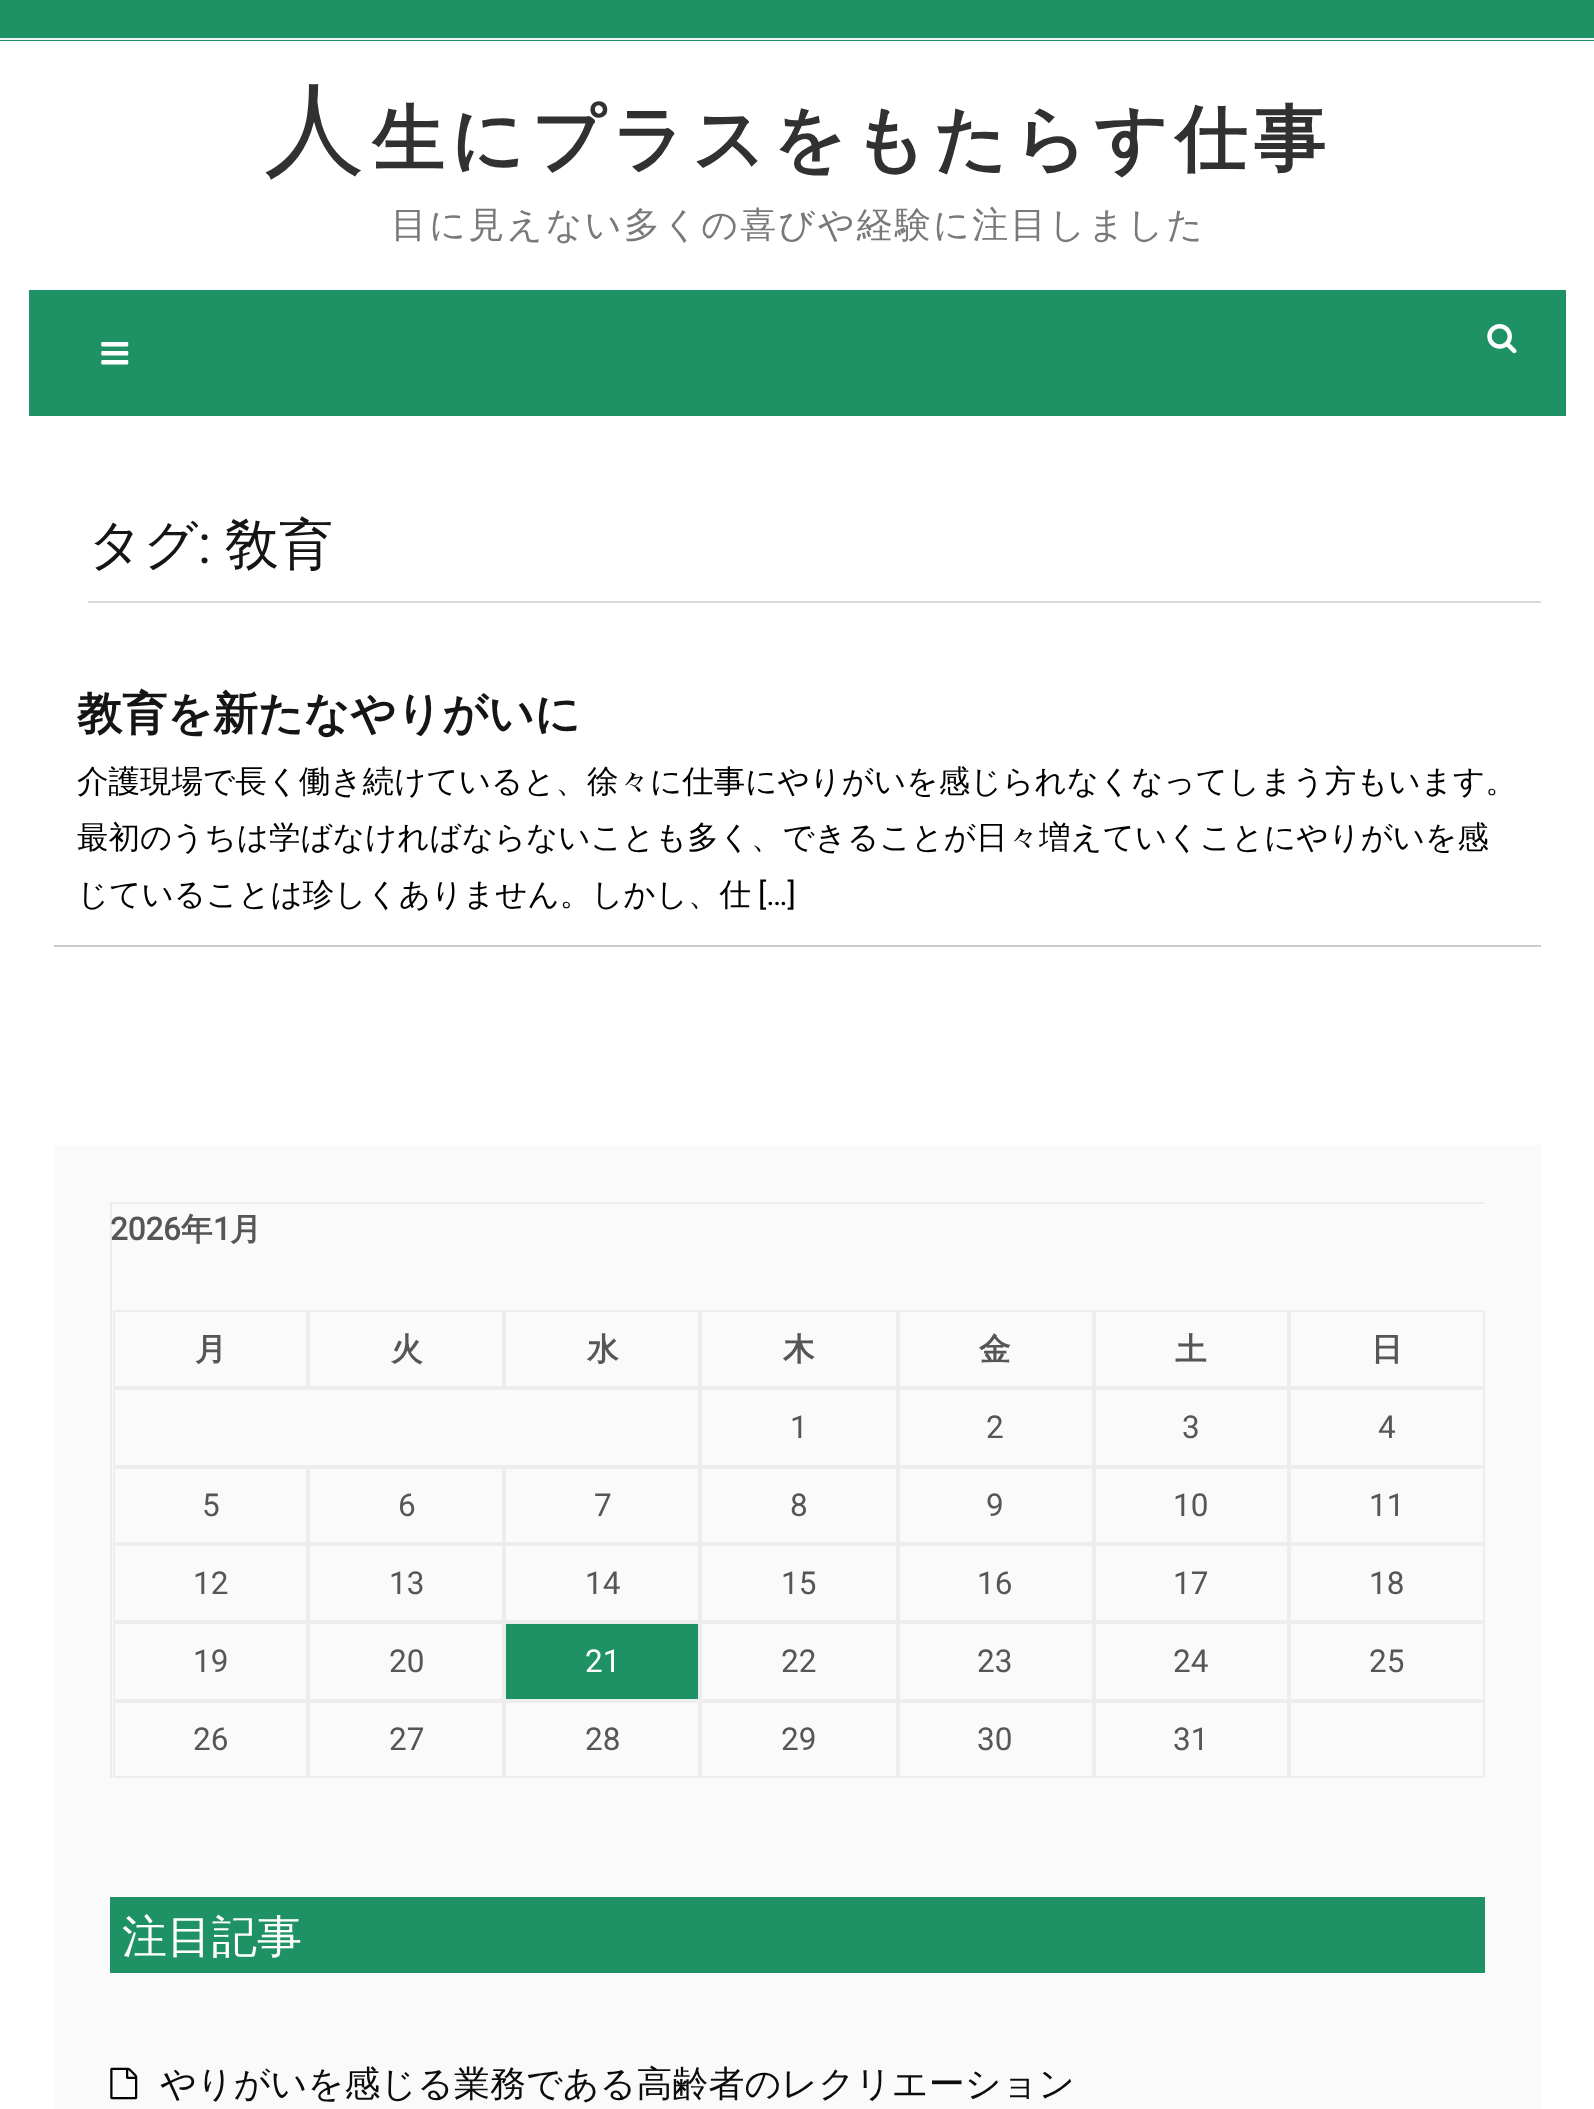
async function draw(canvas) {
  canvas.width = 1594
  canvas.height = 2109
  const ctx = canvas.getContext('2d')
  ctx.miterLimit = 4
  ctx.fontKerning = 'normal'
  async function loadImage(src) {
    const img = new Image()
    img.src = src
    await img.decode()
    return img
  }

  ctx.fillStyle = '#fff'
  ctx.fillRect(0, 0, 1594, 2109)
  ctx.fillStyle = '#1e9265'
  ctx.fillRect(0, 0, 1594, 41)
  ctx.fillStyle = '#f1f1f1'
  ctx.fillRect(0, 38, 1594, 2)
  ctx.letterSpacing = '6.75px'
  ctx.font = '100 101px Noto Sans'
  ctx.fillStyle = '#313131'
  ctx.fillText('人', 264, 164)
  ctx.font = 'bold 72px WenQuanYi Zen Hei'
  ctx.fillText('生にプラスをもたらす仕事', 372, 164)
  ctx.letterSpacing = '2.25px'
  ctx.font = '500 36px WenQuanYi Zen Hei'
  ctx.fillStyle = '#797979'
  ctx.fillText('目に見えない多くの喜びや経験に注目しました', 391, 237)
  ctx.fillStyle = '#1e9265'
  ctx.fillRect(29, 290, 1537, 126)
  ctx.drawImage(await loadImage('image0.png'), 101, 342, 28, 23)
  ctx.drawImage(await loadImage('image1.png'), 1487, 324, 30, 30)
  ctx.fillStyle = '#d9d9d9'
  ctx.fillRect(88, 601, 1453, 2)
  ctx.letterSpacing = '0px'
  ctx.font = '500 54px WenQuanYi Zen Hei'
  ctx.fillStyle = '#151515'
  ctx.fillText('タグ', 88, 563)
  ctx.font = '54px Roboto'
  ctx.fillText(':', 198, 563)
  ctx.font = '500 54px WenQuanYi Zen Hei'
  ctx.fillText('敎育', 225, 563)
  ctx.font = 'bold 45px WenQuanYi Zen Hei'
  ctx.fillText('教育を新たなやりがいに', 77, 729)
  ctx.font = '500 31.5px WenQuanYi Zen Hei'
  ctx.fillStyle = '#000'
  ctx.fillText('介護現場で長く働き続けていると、徐々に仕事にやりがいを感じられなくなってしまう方もいます。', 77, 792)
  ctx.fillText('最初のうちは学ばなければならないことも多く、できることが日々増えていくことにやりがいを感', 77, 848)
  ctx.fillText('じていることは珍しくありません。しかし、仕', 77, 905)
  ctx.font = '31.5px Roboto'
  ctx.fillText('[…]', 758, 905)
  ctx.fillStyle = '#ccc'
  ctx.fillRect(54, 945, 1487, 2)
  ctx.fillStyle = '#fbfafa'
  ctx.fillRect(54, 1145, 1487, 964)
  ctx.fillStyle = '#ededed'
  ctx.fillRect(110, 1202, 1375, 2)
  ctx.fillRect(110, 1202, 2, 576)
  ctx.font = 'bold 31.5px Roboto'
  ctx.fillStyle = '#565656'
  ctx.fillText('2026', 110, 1240)
  ctx.font = 'bold 31.5px WenQuanYi Zen Hei'
  ctx.fillText('年', 181, 1240)
  ctx.font = 'bold 31.5px Roboto'
  ctx.fillText('1', 213, 1240)
  ctx.font = 'bold 31.5px WenQuanYi Zen Hei'
  ctx.fillText('月', 230, 1240)
  ctx.strokeStyle = '#ededed'
  ctx.lineWidth = 2
  ctx.strokeRect(114, 1311, 193, 76)
  ctx.fillText('月', 195, 1360)
  ctx.strokeRect(309, 1311, 194, 76)
  ctx.fillText('火', 391, 1360)
  ctx.strokeRect(505, 1311, 194, 76)
  ctx.fillText('水', 587, 1360)
  ctx.strokeRect(701, 1311, 196, 76)
  ctx.fillText('木', 783, 1360)
  ctx.strokeRect(899, 1311, 194, 76)
  ctx.fillText('金', 979, 1360)
  ctx.strokeRect(1095, 1311, 193, 76)
  ctx.fillText('土', 1175, 1360)
  ctx.strokeRect(1290, 1311, 194, 76)
  ctx.fillText('日', 1371, 1360)
  ctx.strokeRect(114, 1389, 585, 77)
  ctx.strokeRect(701, 1389, 196, 77)
  ctx.font = '31.5px Roboto'
  ctx.fillText('1', 790, 1438)
  ctx.strokeRect(899, 1389, 194, 77)
  ctx.fillText('2', 986, 1438)
  ctx.strokeRect(1095, 1389, 193, 77)
  ctx.fillText('3', 1182, 1438)
  ctx.strokeRect(1290, 1389, 194, 77)
  ctx.fillText('4', 1378, 1438)
  ctx.strokeRect(114, 1468, 193, 75)
  ctx.fillText('5', 202, 1516)
  ctx.strokeRect(309, 1468, 194, 75)
  ctx.fillText('6', 398, 1516)
  ctx.strokeRect(505, 1468, 194, 75)
  ctx.fillText('7', 594, 1516)
  ctx.strokeRect(701, 1468, 196, 75)
  ctx.fillText('8', 790, 1516)
  ctx.strokeRect(899, 1468, 194, 75)
  ctx.fillText('9', 986, 1516)
  ctx.strokeRect(1095, 1468, 193, 75)
  ctx.fillText('10', 1173, 1516)
  ctx.strokeRect(1290, 1468, 194, 75)
  ctx.fillText('11', 1369, 1516)
  ctx.strokeRect(114, 1545, 193, 76)
  ctx.fillText('12', 193, 1594)
  ctx.strokeRect(309, 1545, 194, 76)
  ctx.fillText('13', 389, 1594)
  ctx.strokeRect(505, 1545, 194, 76)
  ctx.fillText('14', 585, 1594)
  ctx.strokeRect(701, 1545, 196, 76)
  ctx.fillText('15', 781, 1594)
  ctx.strokeRect(899, 1545, 194, 76)
  ctx.fillText('16', 977, 1594)
  ctx.strokeRect(1095, 1545, 193, 76)
  ctx.fillText('17', 1173, 1594)
  ctx.strokeRect(1290, 1545, 194, 76)
  ctx.fillText('18', 1369, 1594)
  ctx.strokeRect(114, 1623, 193, 77)
  ctx.fillText('19', 193, 1672)
  ctx.strokeRect(309, 1623, 194, 77)
  ctx.fillText('20', 389, 1672)
  ctx.fillStyle = '#1e9265'
  ctx.beginPath()
  ctx.rect(505, 1623, 194, 77)
  ctx.fill()
  ctx.stroke()
  ctx.fillStyle = '#fff'
  ctx.fillText('21', 585, 1672)
  ctx.strokeRect(701, 1623, 196, 77)
  ctx.fillStyle = '#565656'
  ctx.fillText('22', 781, 1672)
  ctx.strokeRect(899, 1623, 194, 77)
  ctx.fillText('23', 977, 1672)
  ctx.strokeRect(1095, 1623, 193, 77)
  ctx.fillText('24', 1173, 1672)
  ctx.strokeRect(1290, 1623, 194, 77)
  ctx.fillText('25', 1369, 1672)
  ctx.strokeRect(114, 1702, 193, 75)
  ctx.fillText('26', 193, 1750)
  ctx.strokeRect(309, 1702, 194, 75)
  ctx.fillText('27', 389, 1750)
  ctx.strokeRect(505, 1702, 194, 75)
  ctx.fillText('28', 585, 1750)
  ctx.strokeRect(701, 1702, 196, 75)
  ctx.fillText('29', 781, 1750)
  ctx.strokeRect(899, 1702, 194, 75)
  ctx.fillText('30', 977, 1750)
  ctx.strokeRect(1095, 1702, 193, 75)
  ctx.fillText('31', 1173, 1750)
  ctx.strokeRect(1290, 1702, 194, 75)
  ctx.fillStyle = '#1e9265'
  ctx.fillRect(110, 1897, 1375, 76)
  ctx.font = '500 45px WenQuanYi Zen Hei'
  ctx.fillStyle = '#fff'
  ctx.fillText('注目記事', 122, 1952)
  ctx.drawImage(await loadImage('image2.png'), 110, 2067, 28, 33)
  ctx.font = '500 36px WenQuanYi Zen Hei'
  ctx.fillStyle = '#0c0c0c'
  ctx.fillText('やりがいを感じる業務である高齢者のレクリエーション', 160, 2096)
}

draw(document.querySelector('canvas'))
